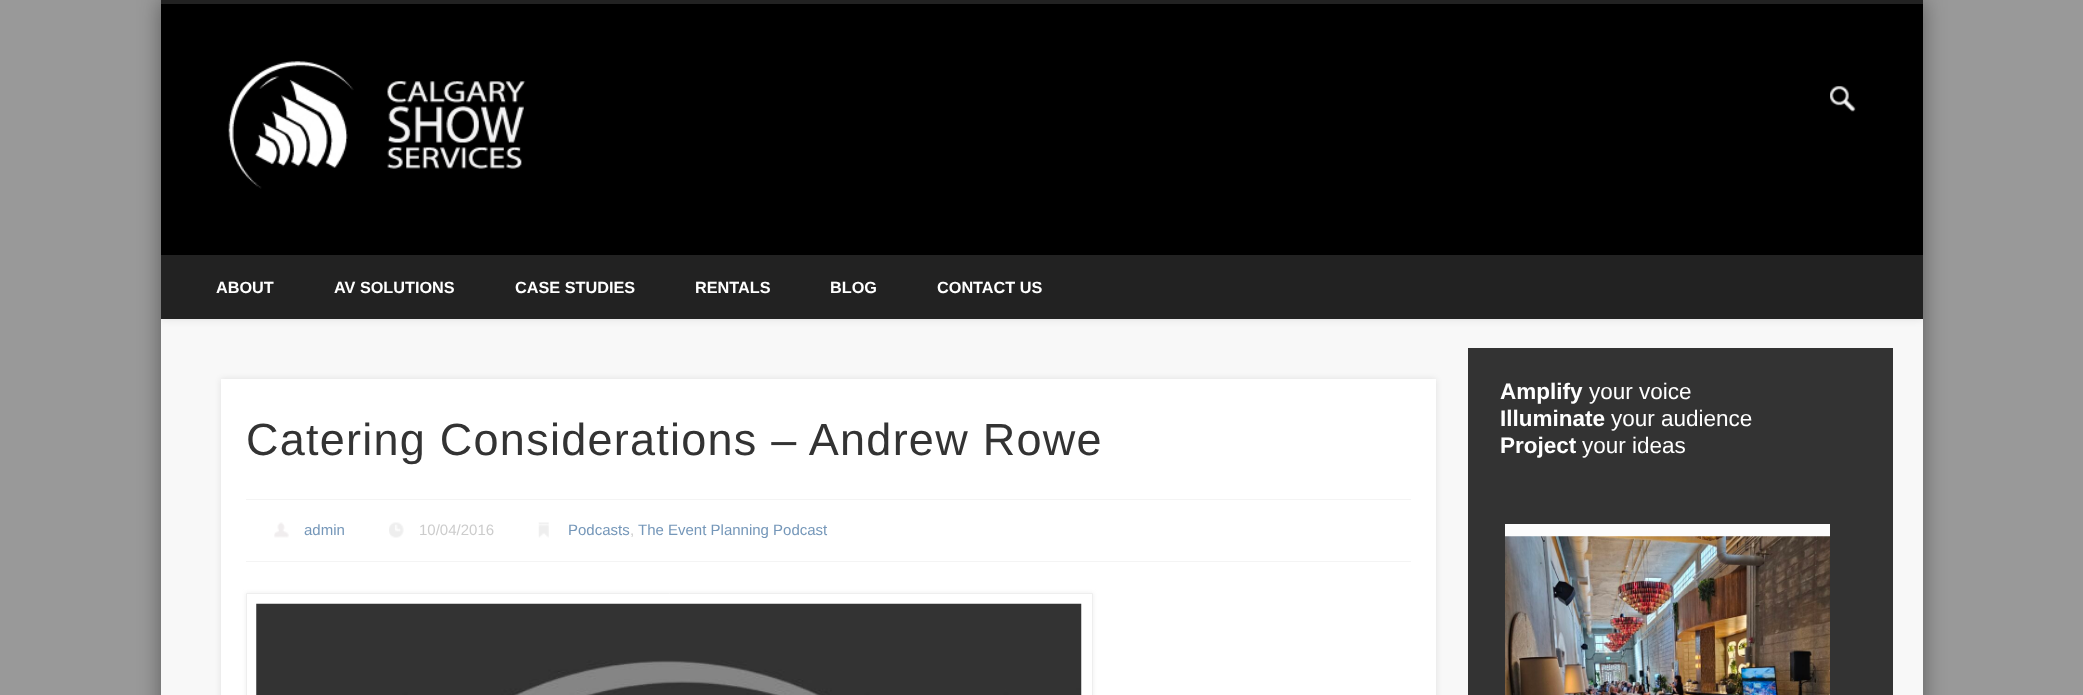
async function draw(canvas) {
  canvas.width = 2083
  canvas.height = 695
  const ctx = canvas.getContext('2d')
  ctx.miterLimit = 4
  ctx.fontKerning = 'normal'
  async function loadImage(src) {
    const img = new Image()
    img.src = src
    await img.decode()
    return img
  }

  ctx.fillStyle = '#999'
  ctx.fillRect(0, 0, 2083, 695)
  ctx.fillStyle = '#00000066'
  ctx.filter = 'blur(11px)'
  ctx.beginPath()
  ctx.rect(161, 0, 1762, 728)
  ctx.fill()
  ctx.filter = 'none'
  ctx.fillStyle = '#f8f8f8'
  ctx.fillRect(161, 319, 1762, 376)
  ctx.fillStyle = '#000'
  ctx.fillRect(161, 4, 1762, 251)
  ctx.fillStyle = '#222'
  ctx.fillRect(161, 0, 1762, 4)
  ctx.drawImage(await loadImage('image0.png'), 228, 61, 298, 128)
  ctx.drawImage(await loadImage('image1.png'), 1830, 86, 26, 26)
  ctx.save()
  ctx.beginPath()
  ctx.rect(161, 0, 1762, 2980)
  ctx.clip()
  ctx.fillStyle = '#0000001a'
  ctx.filter = 'blur(4.5px)'
  ctx.beginPath()
  ctx.rect(161, 255, 1762, 64)
  ctx.fill()
  ctx.filter = 'none'
  ctx.restore()
  ctx.fillRect(161, 255, 1762, 64)
  ctx.font = 'bold 16.25px Liberation Sans'
  ctx.fillStyle = '#fff'
  ctx.fillText('ABOUT', 216, 293)
  ctx.fillText('AV SOLUTIONS', 334, 293)
  ctx.fillText('CASE STUDIES', 515, 293)
  ctx.fillText('RENTALS', 695, 293)
  ctx.fillText('BLOG', 830, 293)
  ctx.fillText('CONTACT US', 937, 293)
  ctx.fillStyle = '#0000001a'
  ctx.filter = 'blur(3px)'
  ctx.beginPath()
  ctx.rect(221, 379, 1215, 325)
  ctx.fill()
  ctx.filter = 'none'
  ctx.fillStyle = '#fff'
  ctx.fillRect(221, 379, 1215, 316)
  ctx.letterSpacing = '1.25px'
  ctx.font = '45px Liberation Sans'
  ctx.fillStyle = '#333'
  ctx.fillText('Catering Considerations – Andrew Rowe', 246, 455)
  ctx.fillStyle = '#f4f4f4'
  ctx.fillRect(246, 499, 1165, 1)
  ctx.fillRect(246, 561, 1165, 1)
  ctx.drawImage(await loadImage('image2.png'), 274, 522, 15, 16)
  ctx.letterSpacing = '0px'
  ctx.font = '15px Liberation Sans'
  ctx.fillStyle = '#7597b9'
  ctx.fillText('admin', 304, 535)
  ctx.drawImage(await loadImage('image3.png'), 389, 522, 15, 16)
  ctx.fillStyle = '#ccc'
  ctx.fillText('10/04/2016', 419, 535)
  ctx.drawImage(await loadImage('image4.png'), 538, 522, 11, 16)
  ctx.fillStyle = '#7597b9'
  ctx.fillText('Podcasts', 568, 535)
  ctx.fillStyle = '#ccc'
  ctx.fillText(',', 630, 535)
  ctx.fillStyle = '#7597b9'
  ctx.fillText('The Event Planning Podcast', 638, 535)
  ctx.fillStyle = '#eee'
  ctx.filter = 'blur(2px)'
  ctx.beginPath()
  ctx.rect(246, 593, 847, 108)
  ctx.fill()
  ctx.filter = 'none'
  ctx.fillStyle = '#fff'
  ctx.beginPath()
  ctx.rect(246.5, 593.5, 846, 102)
  ctx.fill()
  ctx.strokeStyle = '#eee'
  ctx.stroke()
  ctx.drawImage(await loadImage('image5.png'), 256, 603, 826, 92)
  ctx.fillStyle = '#333'
  ctx.fillRect(1468, 348, 425, 347)
  ctx.font = 'bold 22.5px Liberation Sans'
  ctx.fillStyle = '#fff'
  ctx.fillText('Amplify', 1500, 399)
  ctx.font = '22.5px Liberation Sans'
  ctx.fillText('your voice', 1589, 399)
  ctx.font = 'bold 22.5px Liberation Sans'
  ctx.fillText('Illuminate', 1500, 426)
  ctx.font = '22.5px Liberation Sans'
  ctx.fillText('your audience', 1611, 426)
  ctx.font = 'bold 22.5px Liberation Sans'
  ctx.fillText('Project', 1500, 453)
  ctx.font = '22.5px Liberation Sans'
  ctx.fillText('your ideas', 1582, 453)
  ctx.fillStyle = '#fcfcfc'
  ctx.fillRect(1505, 524, 325, 13)
  ctx.drawImage(await loadImage('image6.png'), 1505, 536, 325, 159)
}

draw(document.querySelector('canvas'))
